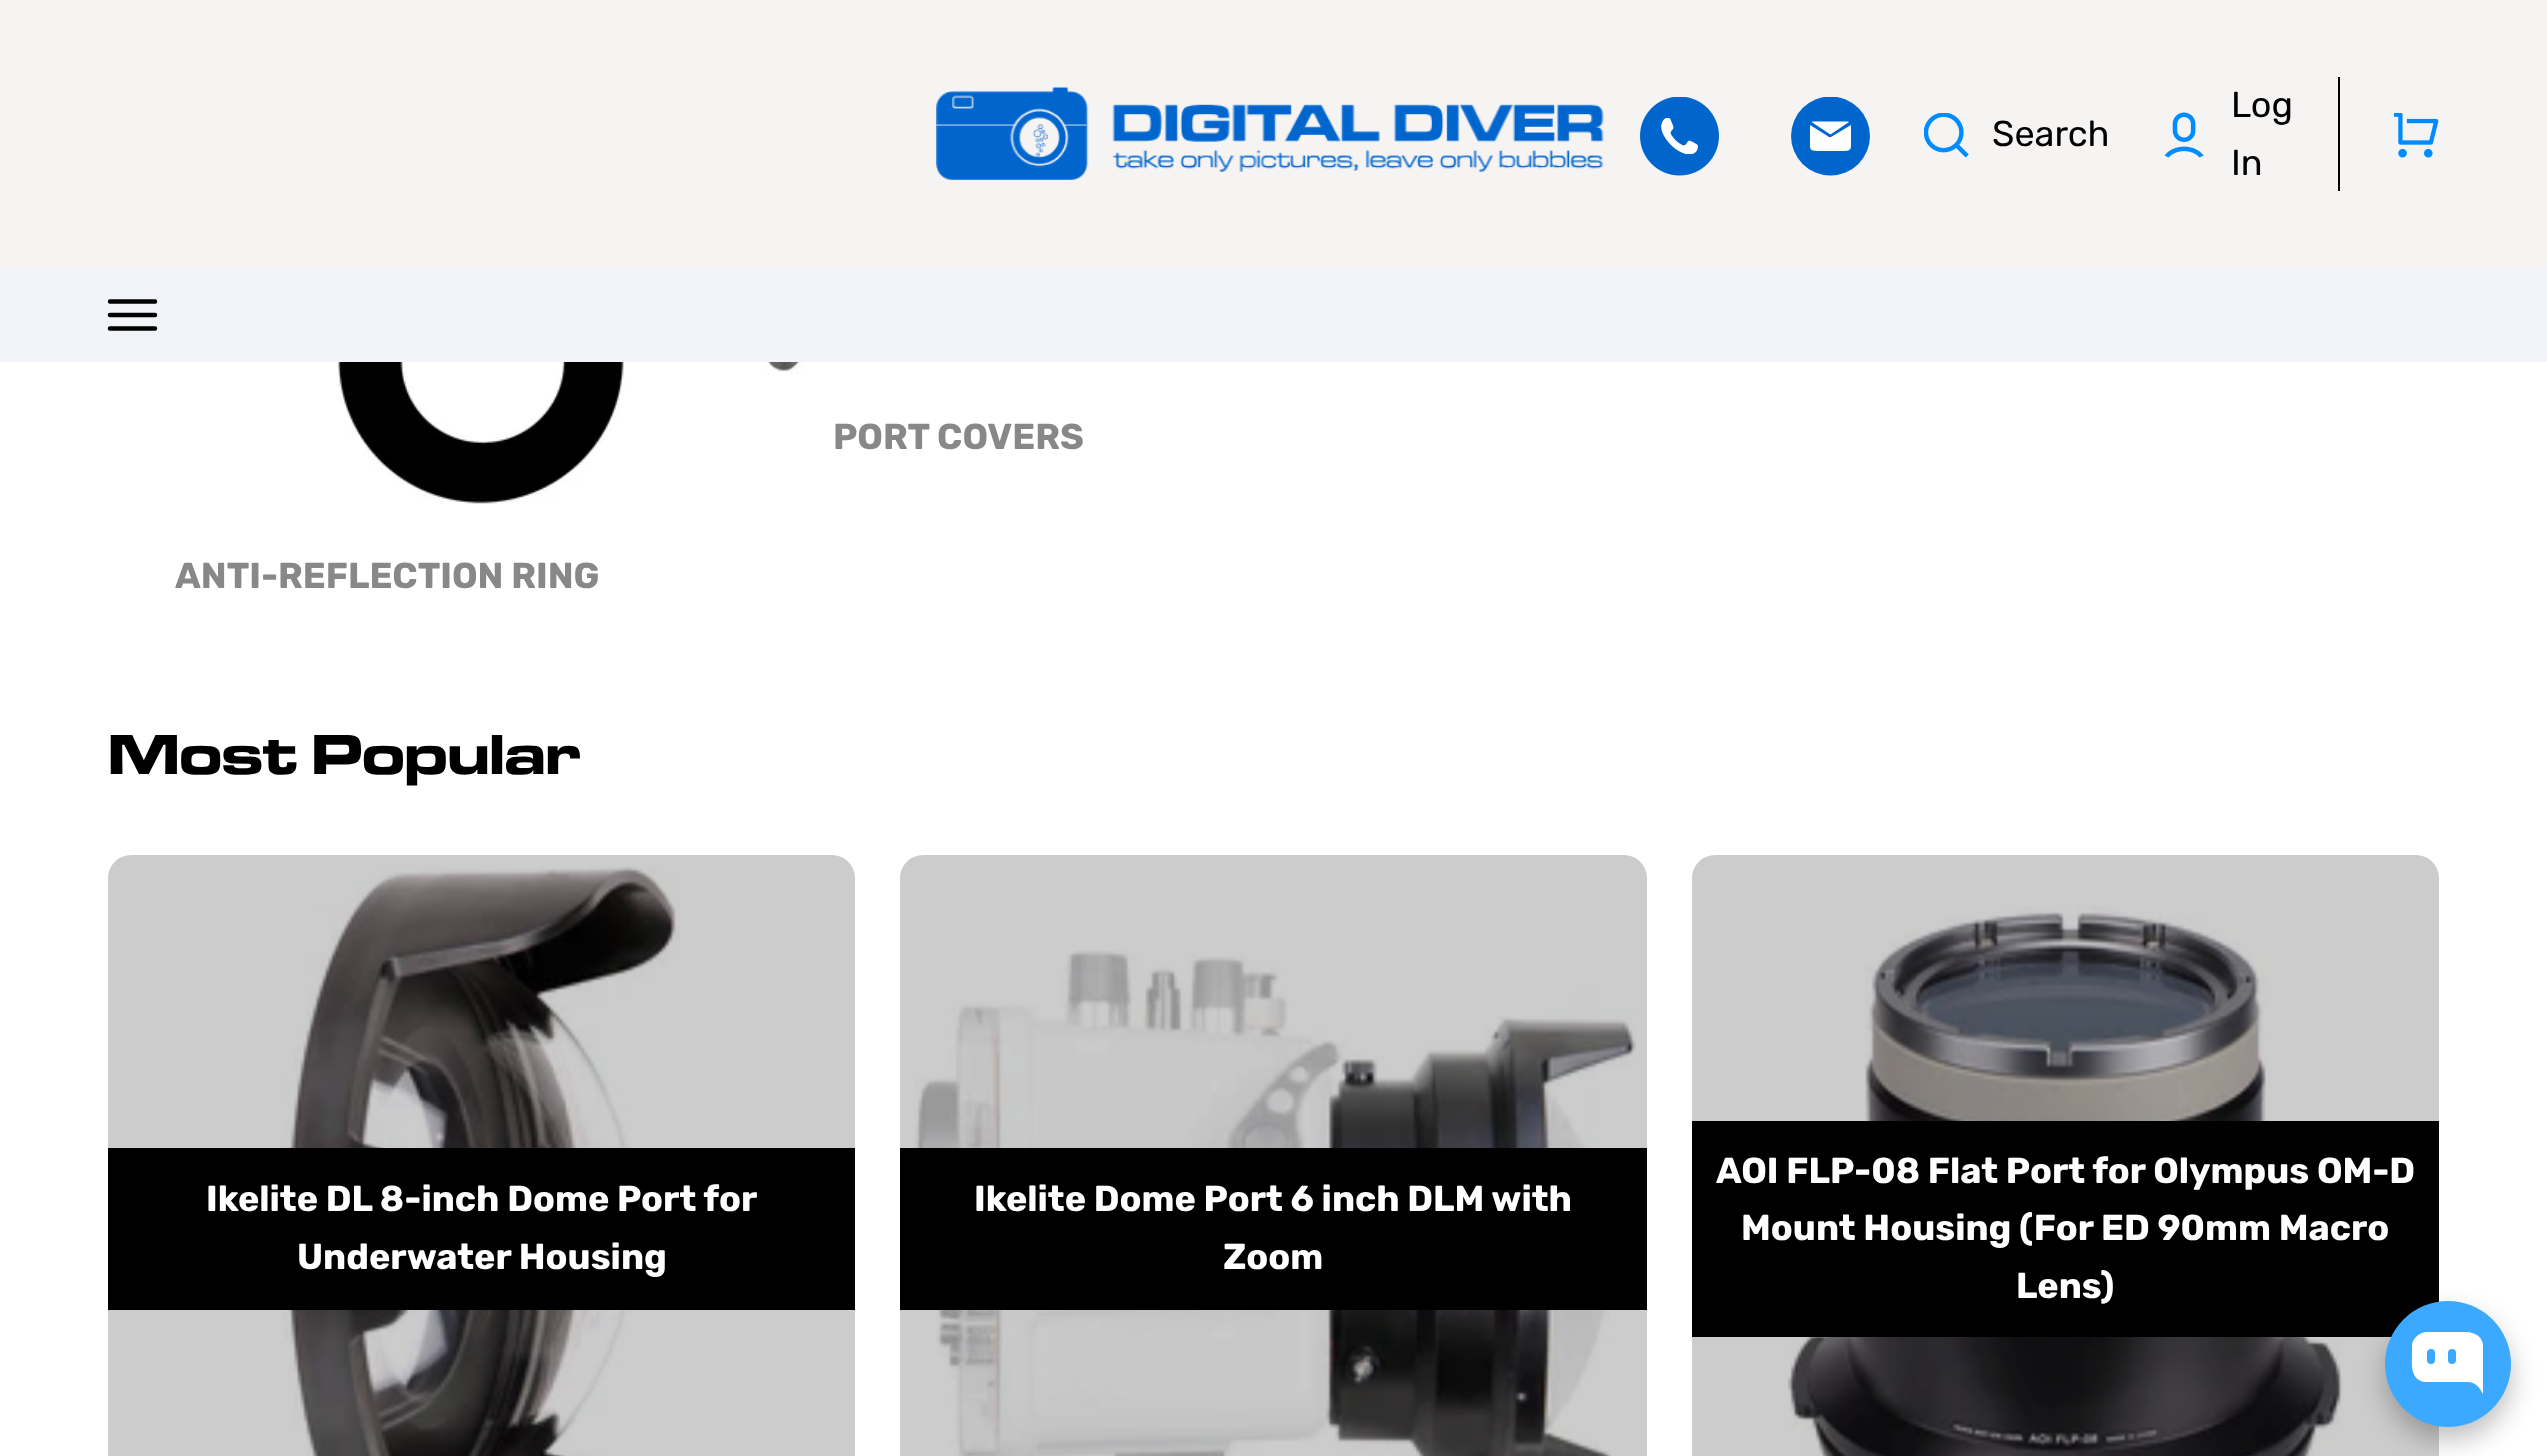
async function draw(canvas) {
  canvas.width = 2547
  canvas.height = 1456
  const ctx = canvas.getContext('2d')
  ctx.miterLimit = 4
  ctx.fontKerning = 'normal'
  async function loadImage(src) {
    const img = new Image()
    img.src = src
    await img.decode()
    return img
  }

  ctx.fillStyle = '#fff'
  ctx.fillRect(0, 0, 2547, 1456)
  ctx.fillStyle = '#f6f3f3'
  ctx.fillRect(0, 0, 2547, 268)
  ctx.drawImage(await loadImage('image0.png'), 936, 86, 668, 94)
  ctx.drawImage(await loadImage('image1.png'), 1640, 97, 79, 79)
  ctx.save()
  ctx.beginPath()
  ctx.rect(1791, 97, 79, 79)
  ctx.clip()
  ctx.fillStyle = '#0066cd'
  ctx.beginPath()
  ctx.arc(1830.5, 136, 39.5, 0, 2 * Math.PI)
  ctx.fill()
  ctx.restore()
  ctx.fillStyle = '#fff'
  ctx.beginPath()
  ctx.moveTo(1830.5, 134.5)
  ctx.lineTo(1849, 122)
  ctx.bezierCurveTo(1848.5, 121.5, 1847.5, 121.5, 1846.5, 121.5)
  ctx.lineTo(1814, 121.5)
  ctx.bezierCurveTo(1813, 121.5, 1812.5, 121.5, 1811.5, 122)
  ctx.closePath()
  ctx.fill()
  ctx.beginPath()
  ctx.moveTo(1831, 137)
  ctx.bezierCurveTo(1829, 138, 1828, 136, 1826, 135)
  ctx.lineTo(1810, 125)
  ctx.lineTo(1810, 140)
  ctx.bezierCurveTo(1810, 150, 1809, 151, 1820, 151)
  ctx.lineTo(1841, 151)
  ctx.bezierCurveTo(1852, 151, 1851, 150, 1851, 140)
  ctx.lineTo(1851, 125)
  ctx.closePath()
  ctx.fill()
  ctx.drawImage(await loadImage('image2.png'), 1924, 113, 45, 45)
  ctx.font = '36px Rubik'
  ctx.fillStyle = '#000'
  ctx.fillText('Search', 1992, 146)
  ctx.drawImage(await loadImage('image3.png'), 2164, 112, 40, 46)
  ctx.fillRect(2338, 77, 2, 114)
  ctx.fillText('Log', 2231, 117)
  ctx.fillText('In', 2231, 175)
  ctx.drawImage(await loadImage('image4.png'), 2394, 113, 45, 45)
  ctx.fillStyle = '#f1f4f8'
  ctx.fillRect(0, 268, 2547, 94)
  ctx.beginPath()
  ctx.moveTo(110, 301.5)
  ctx.lineTo(155, 301.5)
  ctx.moveTo(110, 315)
  ctx.lineTo(155, 315)
  ctx.moveTo(110, 328.5)
  ctx.lineTo(155, 328.5)
  ctx.strokeStyle = '#000'
  ctx.lineWidth = 4.5
  ctx.lineCap = 'round'
  ctx.stroke()
  ctx.drawImage(await loadImage('image5.png'), 766, 362, 366, 12)
  ctx.font = 'bold 36px Rubik'
  ctx.fillStyle = '#888'
  ctx.fillText('PORT COVERS', 833, 449)
  ctx.drawImage(await loadImage('image6.png'), 152, 362, 473, 142)
  ctx.fillText('ANTI-REFLECTION RING', 175, 588)
  ctx.font = 'bold 58.5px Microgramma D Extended'
  ctx.fillStyle = '#000'
  ctx.fillText('Most Popular', 108, 774)
  ctx.drawImage(await loadImage('image7.png'), 282, 866, 398, 590)
  ctx.fillStyle = '#00000033'
  ctx.beginPath()
  ctx.roundRect(108, 855, 747, 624, 23)
  ctx.fill()
  ctx.fillStyle = '#000'
  ctx.fillRect(108, 1148, 747, 162)
  ctx.font = 'bold 36px Rubik'
  ctx.fillStyle = '#fff'
  ctx.fillText('Ikelite DL 8-inch Dome Port for', 206, 1211)
  ctx.fillText('Underwater Housing', 297, 1269)
  ctx.drawImage(await loadImage('image8.png'), 914, 950, 722, 506)
  ctx.fillStyle = '#00000033'
  ctx.beginPath()
  ctx.roundRect(900, 855, 747, 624, 23)
  ctx.fill()
  ctx.fillStyle = '#000'
  ctx.fillRect(900, 1148, 747, 162)
  ctx.fillStyle = '#fff'
  ctx.fillText('Ikelite Dome Port 6 inch DLM with', 974, 1211)
  ctx.fillText('Zoom', 1223, 1269)
  ctx.drawImage(await loadImage('image9.png'), 1787, 905, 556, 551)
  ctx.fillStyle = '#00000033'
  ctx.beginPath()
  ctx.roundRect(1692, 855, 747, 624, 23)
  ctx.fill()
  ctx.fillStyle = '#000'
  ctx.fillRect(1692, 1121, 747, 216)
  ctx.fillStyle = '#fff'
  ctx.fillText('AOI FLP-08 Flat Port for Olympus OM-D', 1716, 1183)
  ctx.fillText('Mount Housing (For ED 90mm Macro', 1741, 1240)
  ctx.fillText('Lens)', 2016, 1298)
  ctx.fillStyle = '#00000040'
  ctx.filter = 'blur(13.5px)'
  ctx.beginPath()
  ctx.roundRect(2385, 1314, 126, 126, 63)
  ctx.fill()
  ctx.filter = 'none'
  ctx.fillStyle = '#3aa9ff'
  ctx.beginPath()
  ctx.arc(2448, 1364, 63, 0, 2 * Math.PI)
  ctx.fill()
  ctx.fillStyle = '#fff'
  ctx.beginPath()
  ctx.moveTo(2427, 1332)
  ctx.bezierCurveTo(2420, 1332, 2414, 1337, 2412, 1344)
  ctx.lineTo(2412, 1354)
  ctx.bezierCurveTo(2412, 1364, 2410, 1379, 2424, 1382)
  ctx.lineTo(2468, 1382)
  ctx.bezierCurveTo(2473, 1382, 2477, 1385, 2480, 1389)
  ctx.lineTo(2483, 1394)
  ctx.lineTo(2483, 1393)
  ctx.lineTo(2483, 1344)
  ctx.bezierCurveTo(2480, 1330, 2465, 1332, 2455, 1332)
  ctx.closePath()
  ctx.fill('evenodd')
  ctx.fillStyle = '#3aa9ff'
  ctx.beginPath()
  ctx.roundRect(2427, 1349, 8, 15, 4)
  ctx.fill()
  ctx.beginPath()
  ctx.roundRect(2448, 1349, 8, 15, 4)
  ctx.fill()
}

draw(document.querySelector('canvas'))
